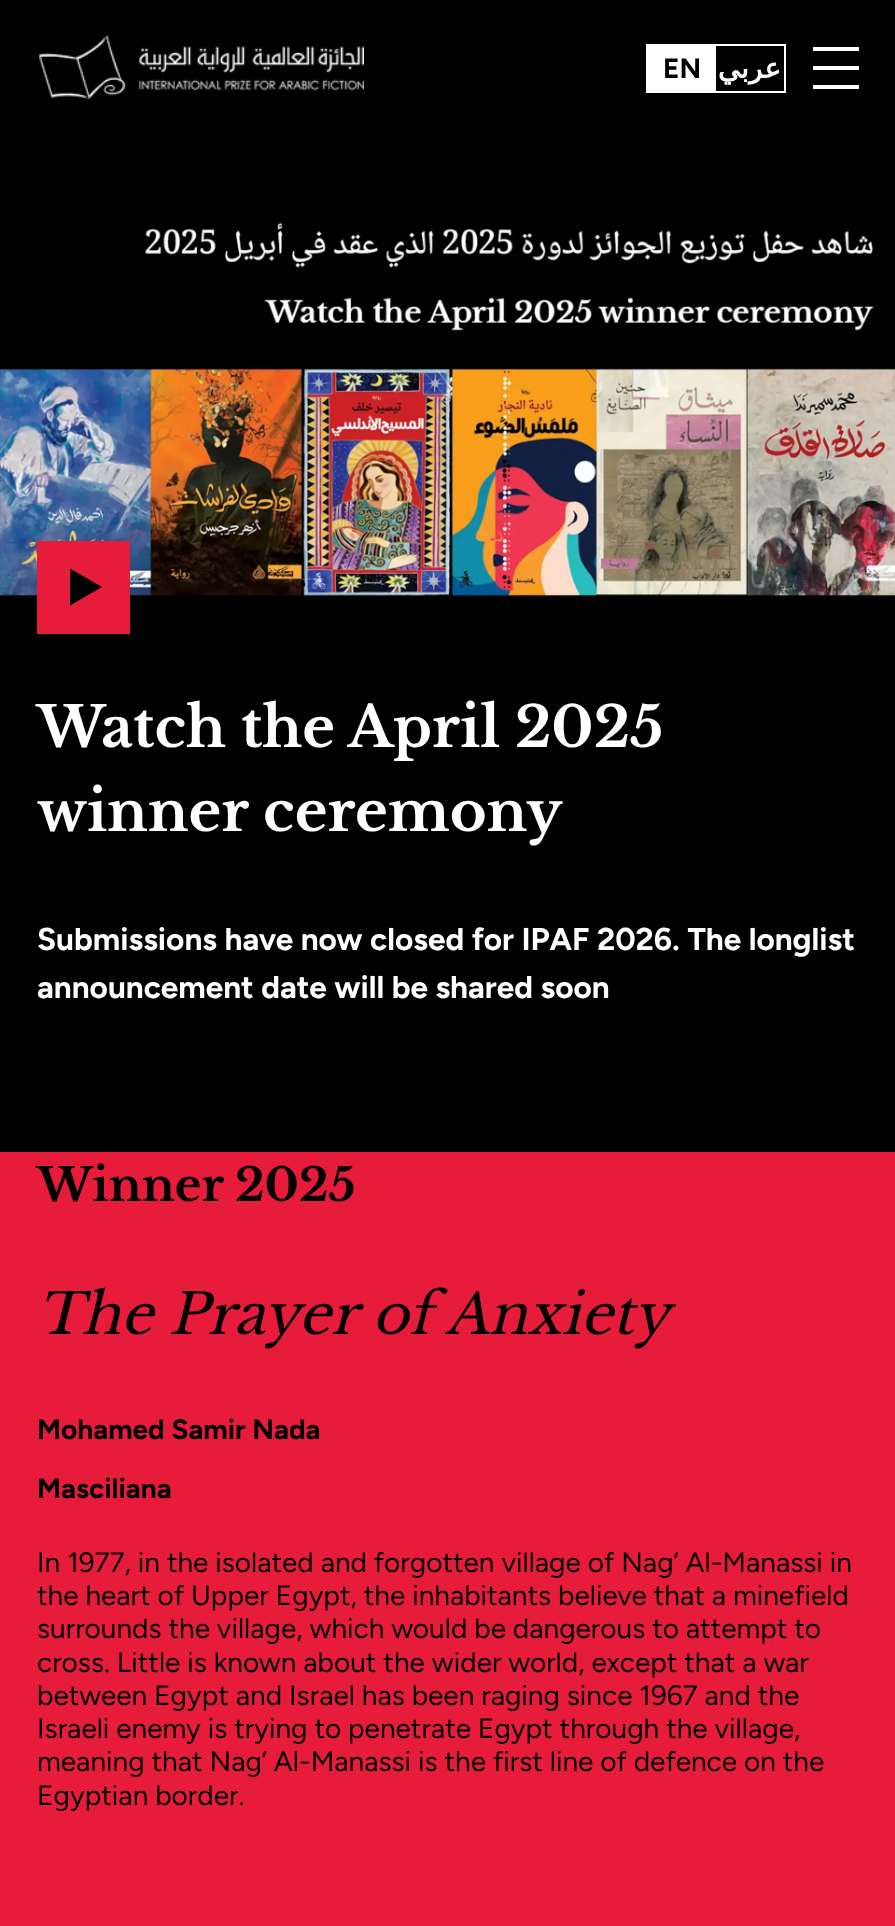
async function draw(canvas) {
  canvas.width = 895
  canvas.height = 1926
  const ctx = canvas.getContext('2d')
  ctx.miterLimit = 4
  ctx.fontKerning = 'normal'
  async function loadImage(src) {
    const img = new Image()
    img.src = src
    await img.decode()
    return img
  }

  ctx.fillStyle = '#000'
  ctx.fillRect(0, 0, 895, 1926)
  ctx.drawImage(await loadImage('image0.png'), 38, 35, 326, 65)
  ctx.strokeStyle = '#fff'
  ctx.lineWidth = 2
  ctx.strokeRect(647, 45, 138, 47)
  ctx.fillStyle = '#fff'
  ctx.fillRect(648, 46, 68, 45)
  ctx.font = 'bold 28px Figtree'
  ctx.fillStyle = '#000'
  ctx.fillText('EN', 663, 78)
  ctx.direction = 'rtl'
  ctx.font = 'bold 28px DejaVu Sans'
  ctx.fillStyle = '#fff'
  ctx.fillText('عربي', 781, 78)
  ctx.beginPath()
  ctx.moveTo(813, 47)
  ctx.lineTo(859, 47)
  ctx.lineTo(859, 51)
  ctx.lineTo(813, 51)
  ctx.closePath()
  ctx.moveTo(813, 66)
  ctx.lineTo(859, 66)
  ctx.lineTo(859, 70)
  ctx.lineTo(813, 70)
  ctx.closePath()
  ctx.moveTo(813, 85)
  ctx.lineTo(859, 85)
  ctx.lineTo(859, 89)
  ctx.lineTo(813, 89)
  ctx.closePath()
  ctx.fill()
  ctx.drawImage(await loadImage('image1.png'), 0, 222, 895, 377)
  ctx.fillStyle = '#e71c3a'
  ctx.fillRect(37, 541, 93, 93)
  ctx.fillStyle = '#000'
  ctx.beginPath()
  ctx.moveTo(102, 587)
  ctx.lineTo(70, 605.5)
  ctx.lineTo(70, 568.5)
  ctx.closePath()
  ctx.fill()
  ctx.direction = 'ltr'
  ctx.font = 'bold 56px Libre Baskerville'
  ctx.fillStyle = '#fff'
  ctx.fillText('Watch the April 2025', 37, 747)
  ctx.fillText('winner ceremony', 37, 831)
  ctx.font = 'bold 31.5px Figtree'
  ctx.fillText('Submissions have now closed for IPAF 2026. The longlist', 37, 950)
  ctx.fillText('announcement date will be shared soon', 37, 998)
  ctx.fillStyle = '#e71c3a'
  ctx.fillRect(0, 1152, 895, 774)
  ctx.font = 'bold 45.5px Libre Baskerville'
  ctx.fillStyle = '#000'
  ctx.fillText('Winner', 37, 1201)
  ctx.fillText('2025', 235, 1201)
  ctx.font = 'italic 56px Libre Baskerville'
  ctx.fillText('The Prayer of Anxiety', 37, 1334)
  ctx.font = 'bold 28px Figtree'
  ctx.fillText('Mohamed Samir Nada', 37, 1439)
  ctx.fillText('Masciliana', 37, 1498)
  ctx.font = '28px Figtree'
  ctx.fillText('In 1977, in the isolated and forgotten village of Nag’ Al-Manassi in', 37, 1572)
  ctx.fillText('the heart of Upper Egypt, the inhabitants believe that a minefield', 37, 1605)
  ctx.fillText('surrounds the village, which would be dangerous to attempt to', 37, 1638)
  ctx.fillText('cross. Little is known about the wider world, except that a war', 37, 1672)
  ctx.fillText('between Egypt and Israel has been raging since 1967 and the', 37, 1705)
  ctx.fillText('Israeli enemy is trying to penetrate Egypt through the village,', 37, 1738)
  ctx.fillText('meaning that Nag’ Al-Manassi is the first line of defence on the', 37, 1771)
  ctx.fillText('Egyptian border.', 37, 1805)
}

draw(document.querySelector('canvas'))
